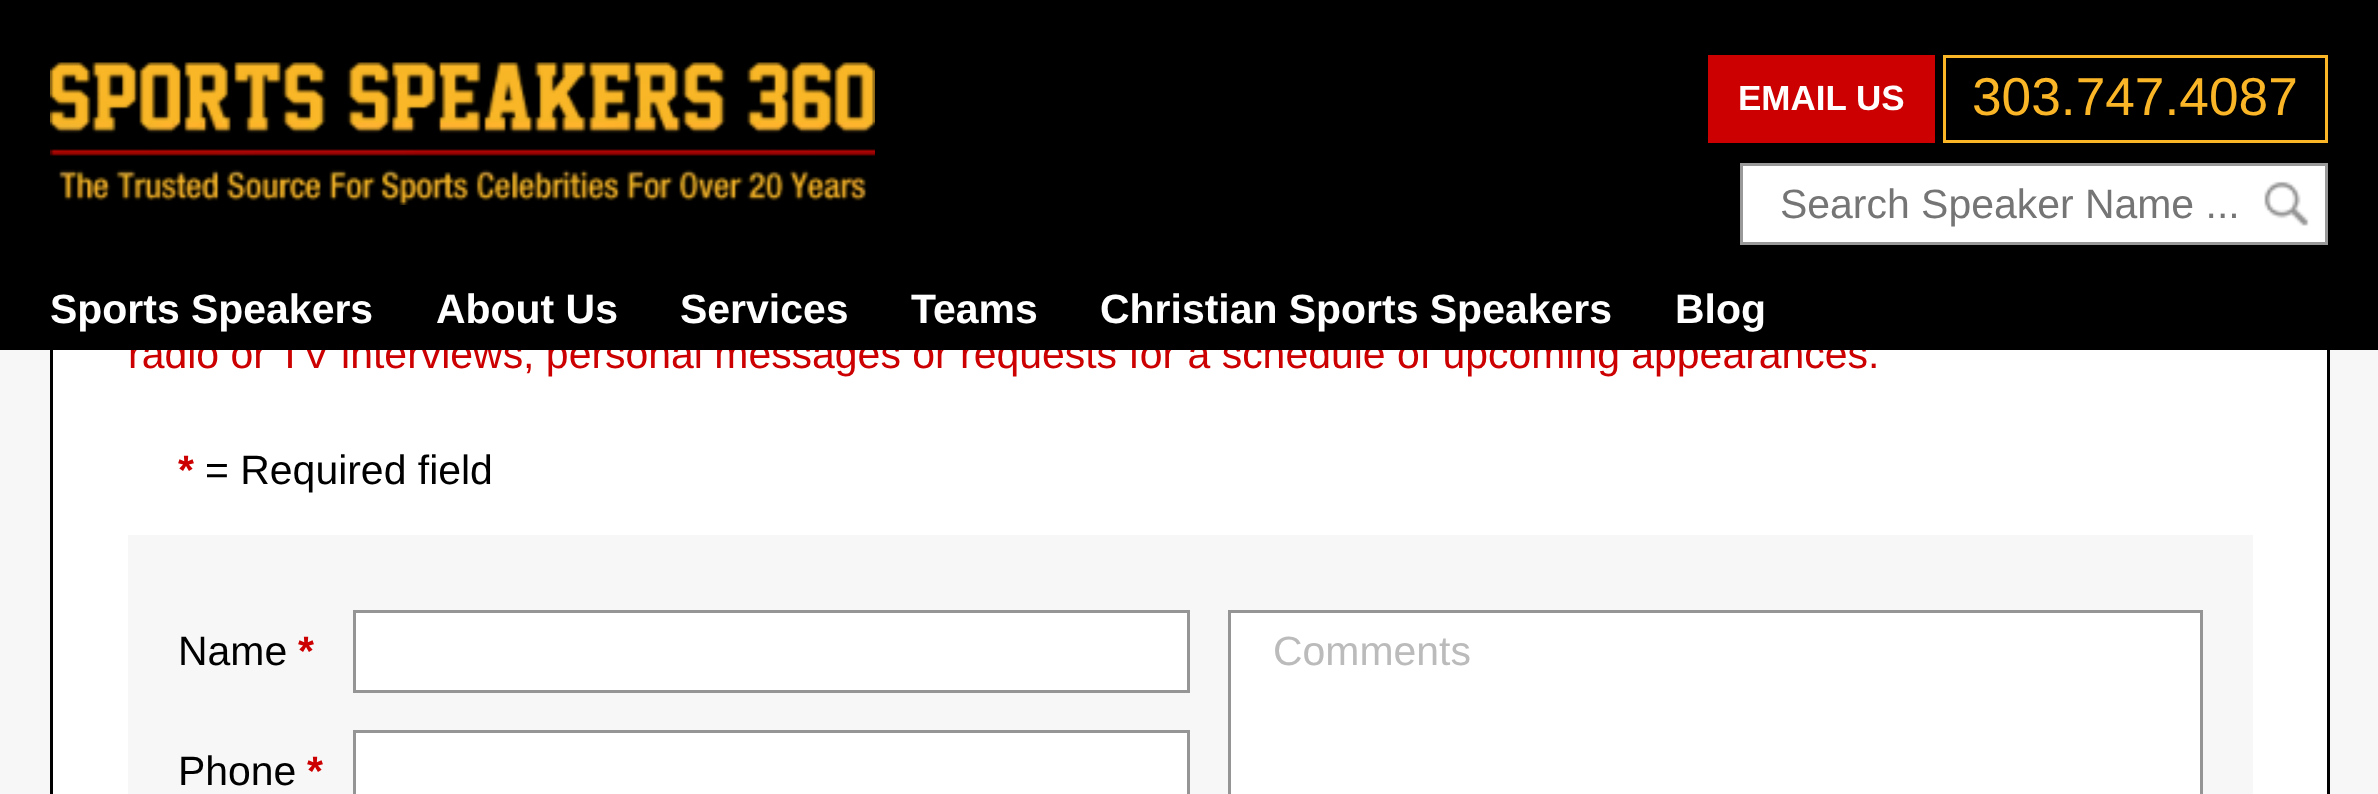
async function draw(canvas) {
  canvas.width = 2378
  canvas.height = 794
  const ctx = canvas.getContext('2d')
  ctx.miterLimit = 4
  ctx.fontKerning = 'normal'
  async function loadImage(src) {
    const img = new Image()
    img.src = src
    await img.decode()
    return img
  }

  ctx.fillStyle = '#f7f7f7'
  ctx.fillRect(0, 0, 2378, 794)
  ctx.fillStyle = '#fff'
  ctx.fillRect(53, 350, 2274, 444)
  ctx.strokeStyle = '#000'
  ctx.lineWidth = 3
  ctx.strokeRect(51.5, -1.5, 2277, 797)
  ctx.font = '40.95px Liberation Sans'
  ctx.fillStyle = '#c00'
  ctx.fillText('radio or TV interviews, personal messages or requests for a schedule of upcoming appearances.', 128, 368)
  ctx.fillStyle = '#000'
  ctx.fillRect(0, 0, 2378, 350)
  ctx.drawImage(await loadImage('image0.png'), 50, 62, 825, 143)
  ctx.fillStyle = '#c00'
  ctx.fillRect(1708, 55, 227, 88)
  ctx.font = 'bold 35px Liberation Sans'
  ctx.fillStyle = '#fff'
  ctx.fillText('EMAIL US', 1738, 110)
  ctx.strokeStyle = '#fab626'
  ctx.strokeRect(1944.5, 56.5, 382, 85)
  ctx.font = '53.25px Liberation Sans'
  ctx.fillStyle = '#fab626'
  ctx.fillText('303.747.4087', 1972, 115)
  ctx.fillStyle = '#fff'
  ctx.beginPath()
  ctx.rect(1741.5, 164.5, 585, 79)
  ctx.fill()
  ctx.strokeStyle = '#999'
  ctx.stroke()
  ctx.font = '40.95px Liberation Sans'
  ctx.fillStyle = '#757575'
  ctx.fillText('Search Speaker Name ...', 1780, 218)
  ctx.drawImage(await loadImage('image1.png'), 2264, 181, 45, 45)
  ctx.font = 'bold 40.95px Liberation Sans'
  ctx.fillStyle = '#fff'
  ctx.fillText('Sports Speakers', 50, 323)
  ctx.fillText('About Us', 436, 323)
  ctx.fillText('Services', 680, 323)
  ctx.fillText('Teams', 911, 323)
  ctx.fillText('Christian Sports Speakers', 1100, 323)
  ctx.fillText('Blog', 1675, 323)
  ctx.fillStyle = '#c00'
  ctx.fillText('*', 178, 484)
  ctx.font = '40.95px Liberation Sans'
  ctx.fillStyle = '#000'
  ctx.fillText('= Required field', 205, 484)
  ctx.fillStyle = '#f7f7f7'
  ctx.fillRect(128, 535, 2125, 259)
  ctx.fillStyle = '#000'
  ctx.fillText('Name', 178, 665)
  ctx.font = 'bold 40.95px Liberation Sans'
  ctx.fillStyle = '#c00'
  ctx.fillText('*', 298, 665)
  ctx.fillStyle = '#fff'
  ctx.beginPath()
  ctx.rect(354.5, 611.5, 834, 80)
  ctx.fill()
  ctx.strokeStyle = '#959595'
  ctx.stroke()
  ctx.font = '40.95px Liberation Sans'
  ctx.fillStyle = '#000'
  ctx.fillText('Phone', 178, 785)
  ctx.font = 'bold 40.95px Liberation Sans'
  ctx.fillStyle = '#c00'
  ctx.fillText('*', 307, 785)
  ctx.fillStyle = '#fff'
  ctx.beginPath()
  ctx.rect(354.5, 731.5, 834, 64)
  ctx.fill()
  ctx.stroke()
  ctx.beginPath()
  ctx.rect(1229.5, 611.5, 972, 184)
  ctx.fill()
  ctx.stroke()
  ctx.font = '40.95px Liberation Sans'
  ctx.fillStyle = '#bbb'
  ctx.fillText('Comments', 1273, 665)
}

draw(document.querySelector('canvas'))
